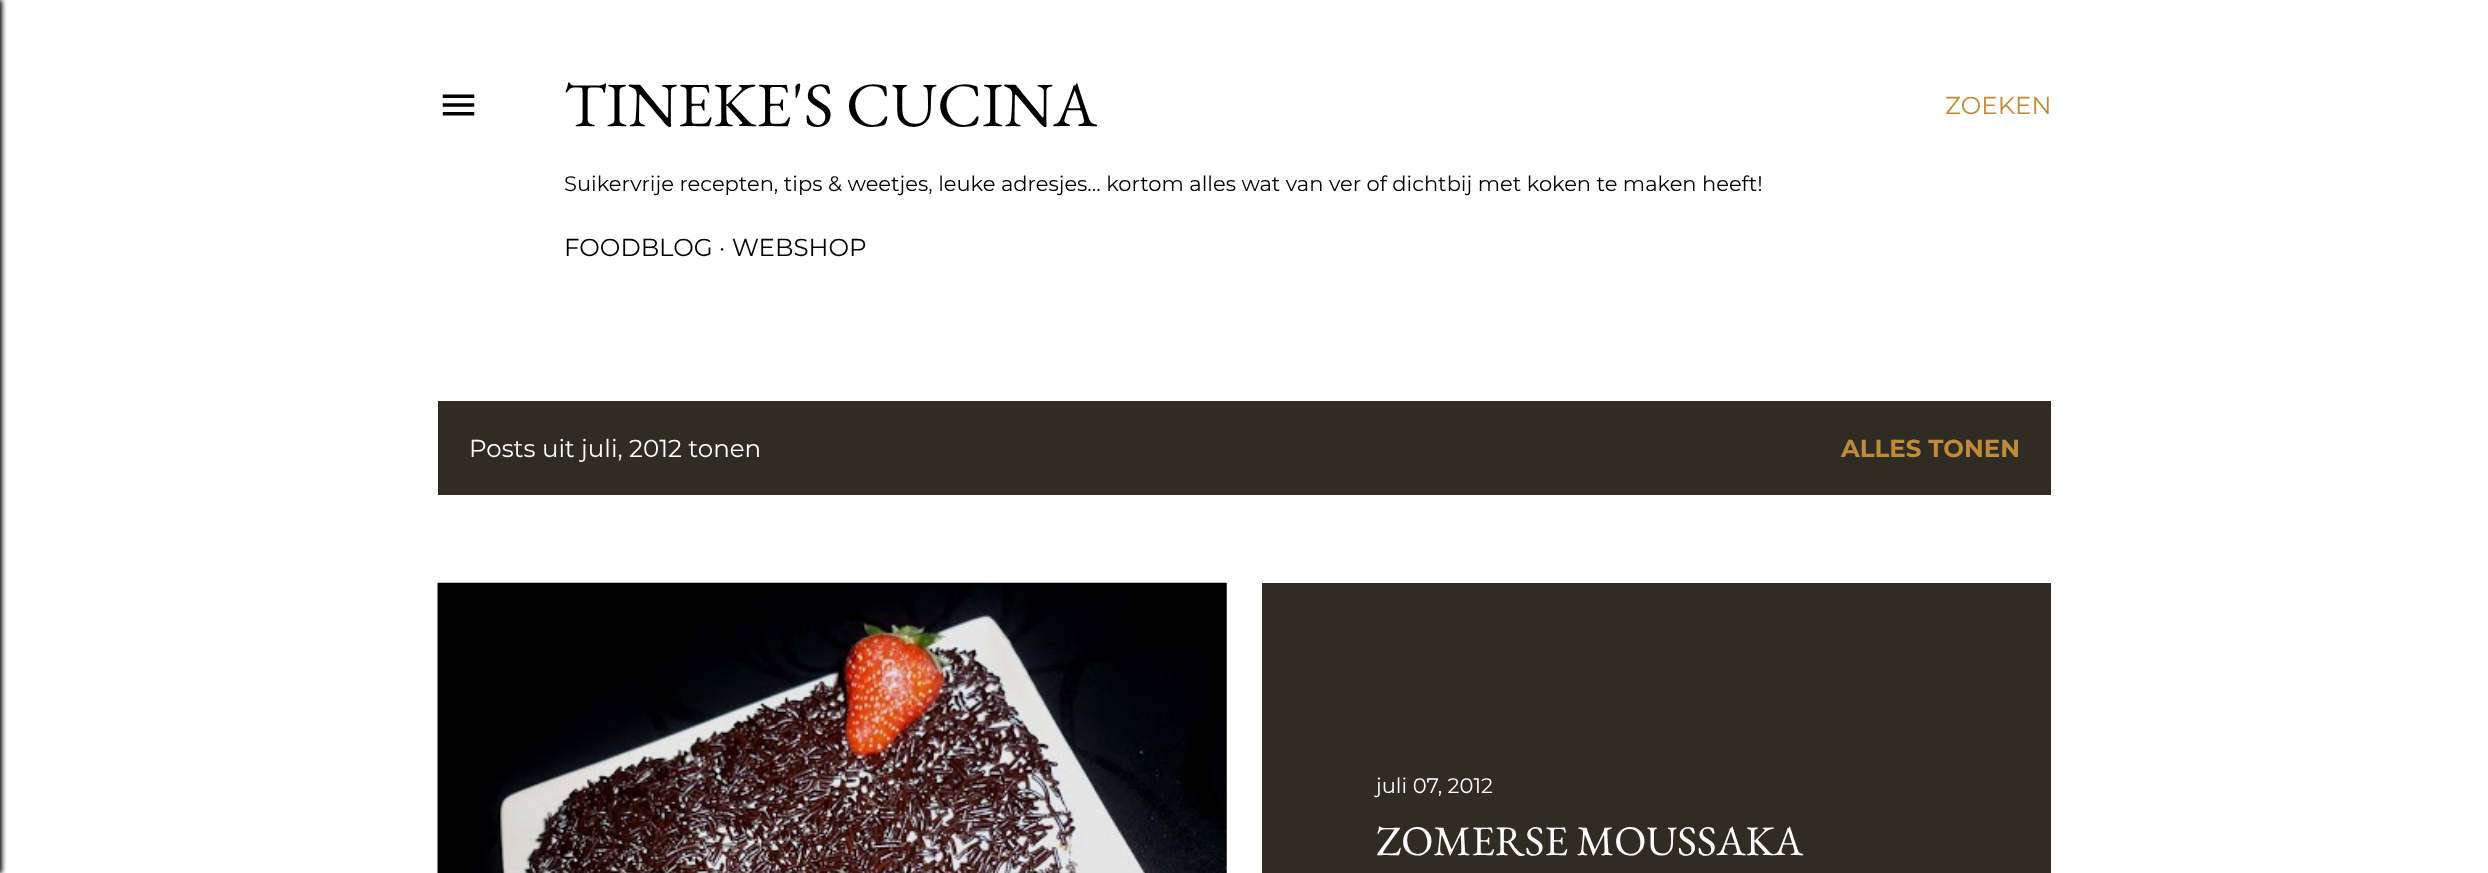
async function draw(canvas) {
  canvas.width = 2488
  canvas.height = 873
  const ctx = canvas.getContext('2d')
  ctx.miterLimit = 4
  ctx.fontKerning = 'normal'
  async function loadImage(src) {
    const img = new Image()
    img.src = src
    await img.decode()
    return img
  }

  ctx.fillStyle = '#fff'
  ctx.fillRect(0, 0, 2488, 873)
  ctx.fillStyle = '#000'
  ctx.filter = 'blur(2.5px)'
  ctx.beginPath()
  ctx.rect(-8, 0, 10, 873)
  ctx.fill()
  ctx.filter = 'none'
  ctx.drawImage(await loadImage('image0.png'), 442, 94, 33, 22)
  ctx.font = '63px EB Garamond'
  ctx.fillText('TINEKE\'S CUCINA', 564, 126)
  ctx.font = '21px Montserrat'
  ctx.fillText('Suikervrije recepten, tips & weetjes, leuke adresjes... kortom alles wat van ver of dichtbij met koken te maken heeft!', 564, 191)
  ctx.font = '24.5px Montserrat'
  ctx.fillText('FOODBLOG · WEBSHOP', 564, 256)
  ctx.fillStyle = '#bf8b38'
  ctx.fillText('ZOEKEN', 1945, 114)
  ctx.fillStyle = '#302c24'
  ctx.fillRect(438, 401, 1613, 94)
  ctx.fillStyle = '#fff'
  ctx.fillText('Posts uit juli, 2012 tonen', 469, 457)
  ctx.font = 'bold 24.5px Montserrat'
  ctx.fillStyle = '#bf8b38'
  ctx.fillText('ALLES TONEN', 1841, 457)
  ctx.drawImage(await loadImage('image1.png'), 437, 582, 790, 291)
  ctx.fillStyle = '#302c24'
  ctx.fillRect(1262, 583, 789, 290)
  ctx.font = '21px Montserrat'
  ctx.fillStyle = '#fff'
  ctx.fillText('juli 07, 2012', 1376, 793)
  ctx.font = '42px EB Garamond'
  ctx.fillText('ZOMERSE MOUSSAKA', 1376, 855)
}

draw(document.querySelector('canvas'))
